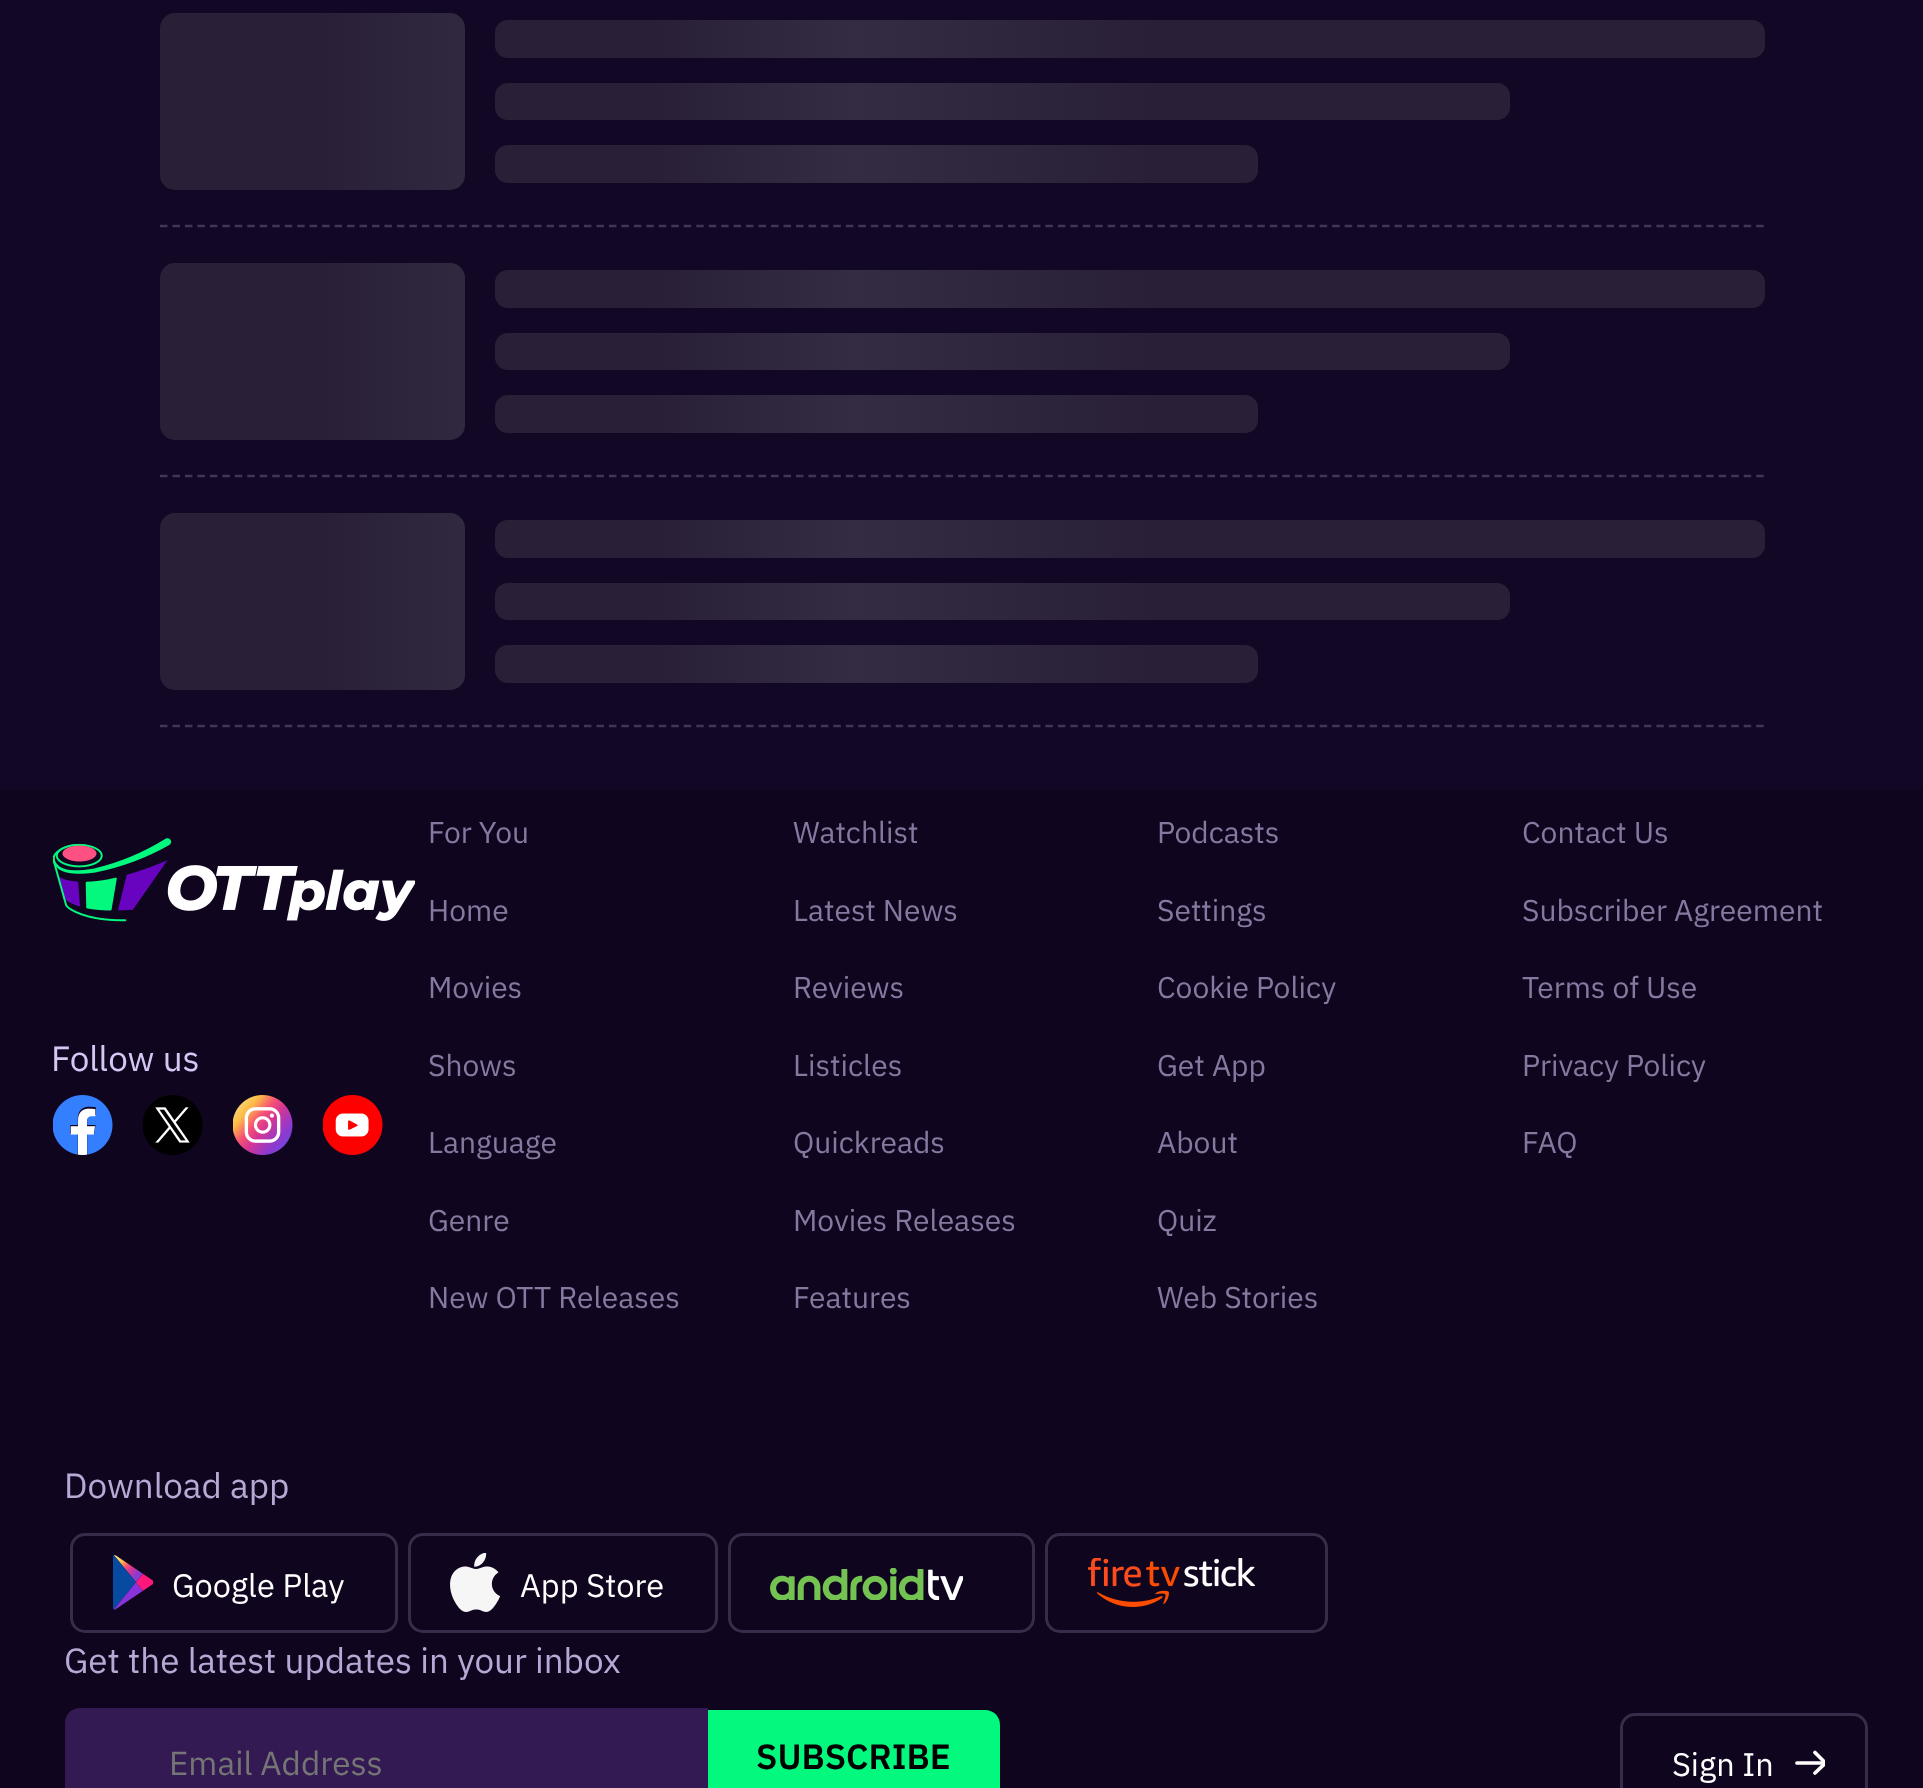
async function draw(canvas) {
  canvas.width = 1923
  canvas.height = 1788
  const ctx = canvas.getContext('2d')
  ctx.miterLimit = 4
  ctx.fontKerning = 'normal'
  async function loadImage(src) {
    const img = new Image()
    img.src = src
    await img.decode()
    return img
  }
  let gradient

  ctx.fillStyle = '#130726'
  ctx.fillRect(0, 0, 1923, 1788)
  ctx.beginPath()
  ctx.moveTo(160, 226)
  ctx.lineTo(1765, 226)
  ctx.strokeStyle = '#423556'
  ctx.lineWidth = 2.5
  ctx.setLineDash([7.5, 4.97])
  ctx.stroke()
  gradient = ctx.createLinearGradient(160, 138, 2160, 137)
  gradient.addColorStop(0.08, '#292038')
  gradient.addColorStop(0.18, '#342c42')
  gradient.addColorStop(0.33, '#292038')
  ctx.fillStyle = gradient
  ctx.beginPath()
  ctx.roundRect(160, 13, 305, 177, 15)
  ctx.fill()
  gradient = ctx.createLinearGradient(495, 145, 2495, 145)
  gradient.addColorStop(0.08, '#292038')
  gradient.addColorStop(0.18, '#342c42')
  gradient.addColorStop(0.33, '#292038')
  ctx.fillStyle = gradient
  ctx.beginPath()
  ctx.roundRect(495, 20, 1270, 38, 13)
  ctx.fill()
  gradient = ctx.createLinearGradient(495, 208, 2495, 207)
  gradient.addColorStop(0.08, '#292038')
  gradient.addColorStop(0.18, '#342c42')
  gradient.addColorStop(0.33, '#292038')
  ctx.fillStyle = gradient
  ctx.beginPath()
  ctx.roundRect(495, 83, 1015, 37, 13)
  ctx.fill()
  gradient = ctx.createLinearGradient(495, 270, 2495, 270)
  gradient.addColorStop(0.08, '#292038')
  gradient.addColorStop(0.18, '#342c42')
  gradient.addColorStop(0.33, '#292038')
  ctx.fillStyle = gradient
  ctx.beginPath()
  ctx.roundRect(495, 145, 763, 38, 13)
  ctx.fill()
  ctx.beginPath()
  ctx.moveTo(160, 476)
  ctx.lineTo(1765, 476)
  ctx.stroke()
  gradient = ctx.createLinearGradient(160, 388, 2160, 387)
  gradient.addColorStop(0.08, '#292038')
  gradient.addColorStop(0.18, '#342c42')
  gradient.addColorStop(0.33, '#292038')
  ctx.fillStyle = gradient
  ctx.beginPath()
  ctx.roundRect(160, 263, 305, 177, 15)
  ctx.fill()
  gradient = ctx.createLinearGradient(495, 395, 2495, 395)
  gradient.addColorStop(0.08, '#292038')
  gradient.addColorStop(0.18, '#342c42')
  gradient.addColorStop(0.33, '#292038')
  ctx.fillStyle = gradient
  ctx.beginPath()
  ctx.roundRect(495, 270, 1270, 38, 13)
  ctx.fill()
  gradient = ctx.createLinearGradient(495, 458, 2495, 457)
  gradient.addColorStop(0.08, '#292038')
  gradient.addColorStop(0.18, '#342c42')
  gradient.addColorStop(0.33, '#292038')
  ctx.fillStyle = gradient
  ctx.beginPath()
  ctx.roundRect(495, 333, 1015, 37, 13)
  ctx.fill()
  gradient = ctx.createLinearGradient(495, 520, 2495, 520)
  gradient.addColorStop(0.08, '#292038')
  gradient.addColorStop(0.18, '#342c42')
  gradient.addColorStop(0.33, '#292038')
  ctx.fillStyle = gradient
  ctx.beginPath()
  ctx.roundRect(495, 395, 763, 38, 13)
  ctx.fill()
  ctx.beginPath()
  ctx.moveTo(160, 726)
  ctx.lineTo(1765, 726)
  ctx.stroke()
  gradient = ctx.createLinearGradient(160, 638, 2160, 637)
  gradient.addColorStop(0.08, '#292038')
  gradient.addColorStop(0.18, '#342c42')
  gradient.addColorStop(0.33, '#292038')
  ctx.fillStyle = gradient
  ctx.beginPath()
  ctx.roundRect(160, 513, 305, 177, 15)
  ctx.fill()
  gradient = ctx.createLinearGradient(495, 645, 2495, 645)
  gradient.addColorStop(0.08, '#292038')
  gradient.addColorStop(0.18, '#342c42')
  gradient.addColorStop(0.33, '#292038')
  ctx.fillStyle = gradient
  ctx.beginPath()
  ctx.roundRect(495, 520, 1270, 38, 13)
  ctx.fill()
  gradient = ctx.createLinearGradient(495, 708, 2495, 708)
  gradient.addColorStop(0.08, '#292038')
  gradient.addColorStop(0.18, '#342c42')
  gradient.addColorStop(0.33, '#292038')
  ctx.fillStyle = gradient
  ctx.beginPath()
  ctx.roundRect(495, 583, 1015, 37, 13)
  ctx.fill()
  gradient = ctx.createLinearGradient(495, 770, 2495, 770)
  gradient.addColorStop(0.08, '#292038')
  gradient.addColorStop(0.18, '#342c42')
  gradient.addColorStop(0.33, '#292038')
  ctx.fillStyle = gradient
  ctx.beginPath()
  ctx.roundRect(495, 645, 763, 38, 13)
  ctx.fill()
  ctx.fillStyle = '#0f051f'
  ctx.fillRect(0, 790, 1923, 998)
  ctx.drawImage(await loadImage('image0.png'), 53, 838, 362, 84)
  ctx.font = '35px IBM Plex Sans'
  ctx.fillStyle = '#d6c6f4'
  ctx.fillText('Follow us', 51, 1071)
  ctx.drawImage(await loadImage('image1.png'), 53, 1095, 60, 60)
  ctx.drawImage(await loadImage('image2.png'), 143, 1095, 60, 60)
  ctx.drawImage(await loadImage('image3.png'), 233, 1095, 60, 60)
  ctx.drawImage(await loadImage('image4.png'), 323, 1095, 60, 60)
  ctx.font = '30px IBM Plex Sans'
  ctx.fillStyle = '#86799f'
  ctx.fillText('For You', 428, 843)
  ctx.fillText('Home', 428, 921)
  ctx.fillText('Movies', 428, 998)
  ctx.fillText('Shows', 428, 1076)
  ctx.fillText('Language', 428, 1153)
  ctx.fillText('Genre', 428, 1231)
  ctx.fillText('New OTT Releases', 428, 1308)
  ctx.fillText('Watchlist', 793, 843)
  ctx.fillText('Latest News', 793, 921)
  ctx.fillText('Reviews', 793, 998)
  ctx.fillText('Listicles', 793, 1076)
  ctx.fillText('Quickreads', 793, 1153)
  ctx.fillText('Movies Releases', 793, 1231)
  ctx.fillText('Features', 793, 1308)
  ctx.fillText('Podcasts', 1157, 843)
  ctx.fillText('Settings', 1157, 921)
  ctx.fillText('Cookie Policy', 1157, 998)
  ctx.fillText('Get App', 1157, 1076)
  ctx.fillText('About', 1157, 1153)
  ctx.fillText('Quiz', 1157, 1231)
  ctx.fillText('Web Stories', 1157, 1308)
  ctx.fillText('Contact Us', 1522, 843)
  ctx.fillText('Subscriber Agreement', 1522, 921)
  ctx.fillText('Terms of Use', 1522, 998)
  ctx.fillText('Privacy Policy', 1522, 1076)
  ctx.fillText('FAQ', 1522, 1153)
  ctx.font = '35px IBM Plex Sans'
  ctx.fillStyle = '#b8a9d4'
  ctx.fillText('Download app', 64, 1498)
  ctx.beginPath()
  ctx.roundRect(71.5, 1534.5, 325, 97, 13.5)
  ctx.strokeStyle = '#d6c6f433'
  ctx.lineWidth = 3
  ctx.setLineDash([])
  ctx.stroke()
  ctx.drawImage(await loadImage('image5.png'), 113, 1555, 40, 55)
  ctx.font = '32.5px IBM Plex Sans'
  ctx.fillStyle = '#fff'
  ctx.fillText('Google Play', 172, 1597)
  ctx.beginPath()
  ctx.roundRect(409.5, 1534.5, 307, 97, 13.5)
  ctx.stroke()
  ctx.drawImage(await loadImage('image6.png'), 450, 1553, 50, 59)
  ctx.fillText('App Store', 520, 1597)
  ctx.beginPath()
  ctx.roundRect(729.5, 1534.5, 304, 97, 13.5)
  ctx.stroke()
  ctx.drawImage(await loadImage('image7.png'), 770, 1568, 193, 32)
  ctx.beginPath()
  ctx.roundRect(1046.5, 1534.5, 280, 97, 13.5)
  ctx.stroke()
  ctx.drawImage(await loadImage('image8.png'), 1088, 1558, 167, 49)
  ctx.font = '35px IBM Plex Sans'
  ctx.fillStyle = '#b8a9d4'
  ctx.fillText('Get the latest updates in your inbox', 64, 1673)
  ctx.fillStyle = '#341a53'
  ctx.beginPath()
  ctx.moveTo(80, 1708)
  ctx.lineTo(708, 1708)
  ctx.lineTo(708, 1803)
  ctx.lineTo(80, 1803)
  ctx.bezierCurveTo(71.5, 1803, 65, 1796.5, 65, 1788)
  ctx.lineTo(65, 1723)
  ctx.bezierCurveTo(65, 1714.5, 71.5, 1708, 80, 1708)
  ctx.closePath()
  ctx.fill()
  ctx.font = '33.25px IBM Plex Sans'
  ctx.fillStyle = '#757575'
  ctx.fillText('Email Address', 169, 1775)
  ctx.fillStyle = '#03f87e'
  ctx.beginPath()
  ctx.moveTo(708, 1710)
  ctx.lineTo(985, 1710)
  ctx.bezierCurveTo(993.5, 1710, 1000, 1716.5, 1000, 1725)
  ctx.lineTo(1000, 1788)
  ctx.bezierCurveTo(1000, 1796.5, 993.5, 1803, 985, 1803)
  ctx.lineTo(708, 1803)
  ctx.closePath()
  ctx.fill()
  ctx.font = '600 35px IBM Plex Sans'
  ctx.fillStyle = '#000'
  ctx.fillText('SUBSCRIBE', 756, 1769)
  ctx.beginPath()
  ctx.roundRect(1621.5, 1714.5, 245, 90, 13.5)
  ctx.strokeStyle = '#372c4a'
  ctx.stroke()
  ctx.font = '32.5px IBM Plex Sans'
  ctx.fillStyle = '#fff'
  ctx.fillText('Sign In', 1672, 1776)
  ctx.save()
  ctx.beginPath()
  ctx.rect(1795, 1750, 30, 25)
  ctx.clip()
  ctx.beginPath()
  ctx.moveTo(1815, 1773)
  ctx.lineTo(1825.5, 1763)
  ctx.lineTo(1815, 1752.5)
  ctx.strokeStyle = '#fff'
  ctx.lineWidth = 3.7
  ctx.lineCap = 'round'
  ctx.lineJoin = 'round'
  ctx.stroke()
  ctx.beginPath()
  ctx.moveTo(1824.5, 1763)
  ctx.lineTo(1797, 1763)
  ctx.lineJoin = 'miter'
  ctx.stroke()
  ctx.restore()
}

draw(document.querySelector('canvas'))
